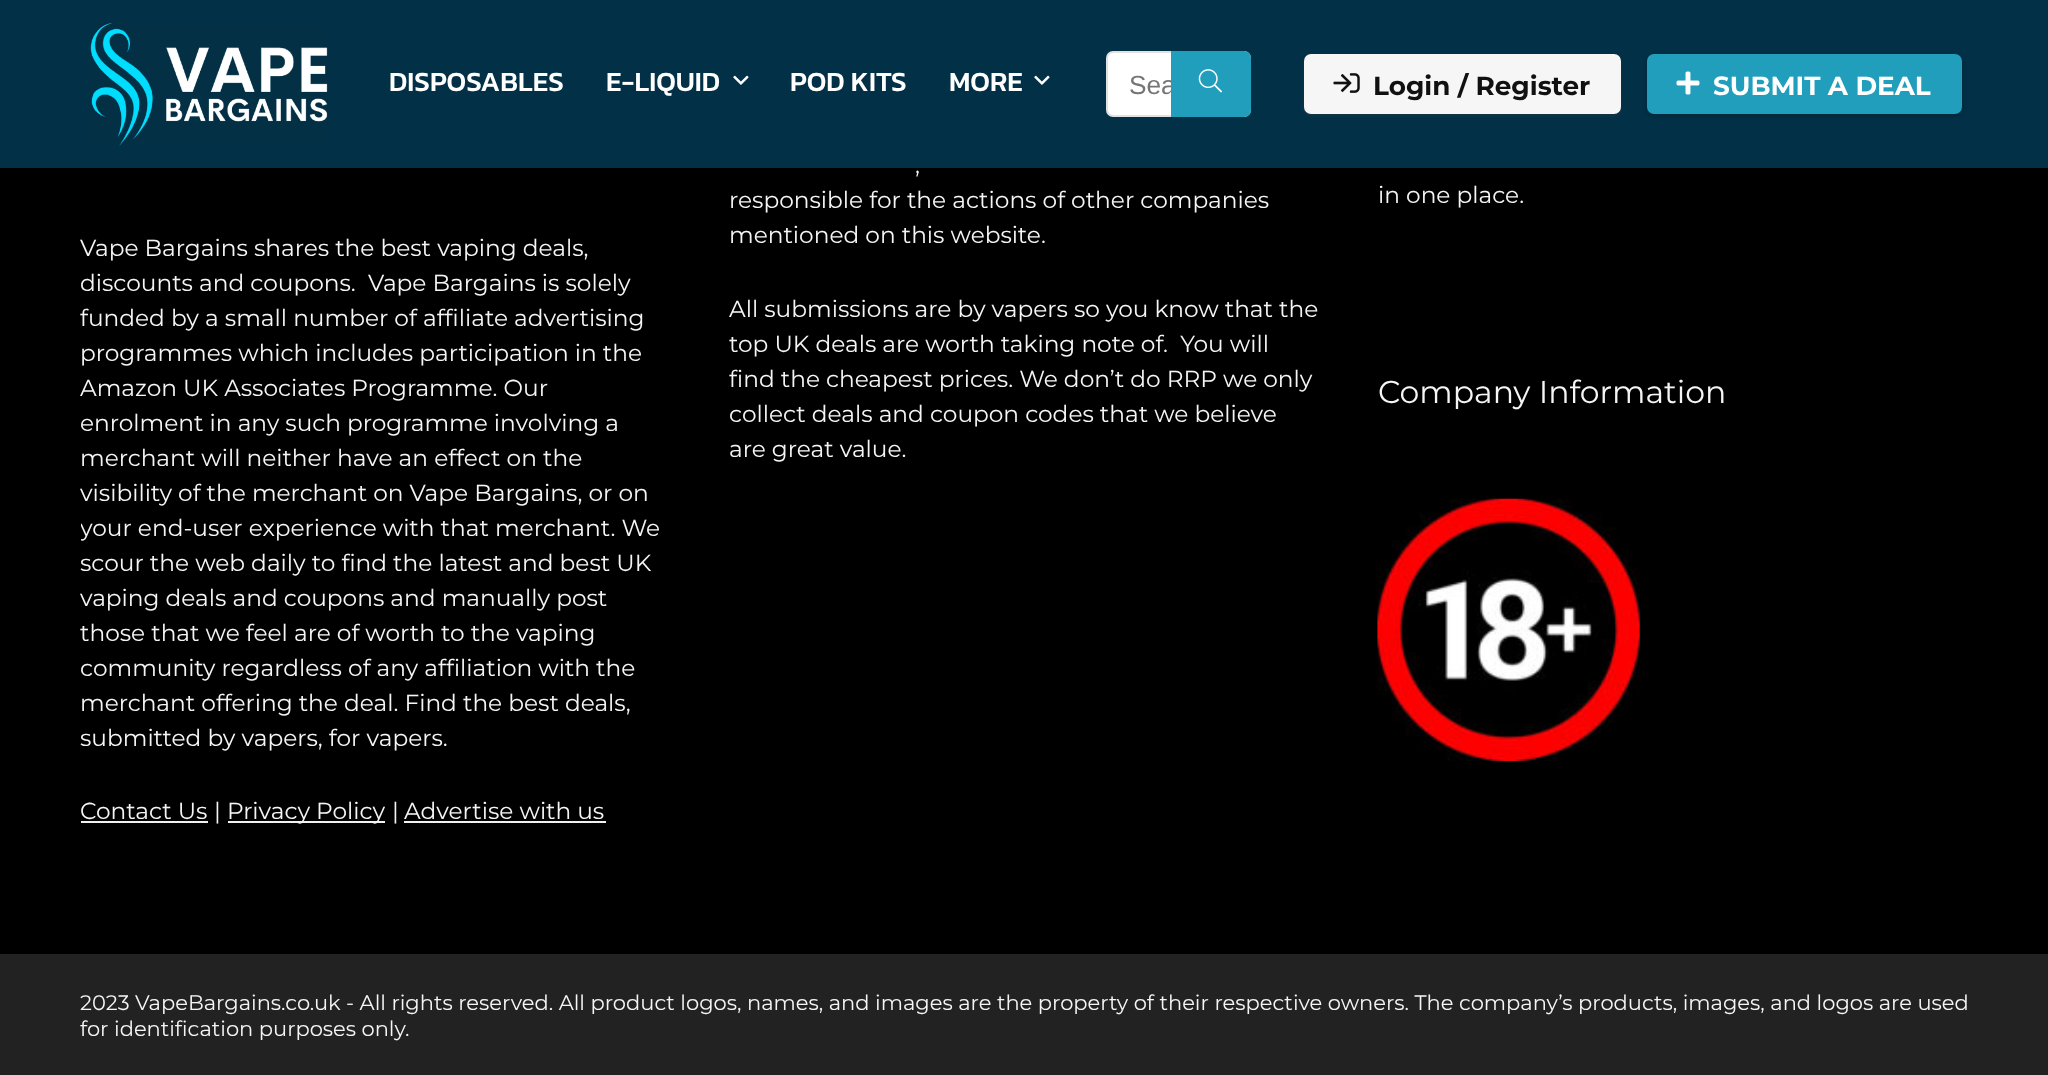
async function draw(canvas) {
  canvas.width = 2048
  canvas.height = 1075
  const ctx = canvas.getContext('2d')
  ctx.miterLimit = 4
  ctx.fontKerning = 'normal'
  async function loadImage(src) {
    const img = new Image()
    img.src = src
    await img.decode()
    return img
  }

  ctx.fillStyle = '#000'
  ctx.fillRect(0, 0, 2048, 1075)
  ctx.fillStyle = '#023047'
  ctx.fillRect(0, 0, 2048, 168)
  ctx.drawImage(await loadImage('image0.png'), 90, 23, 238, 123)
  ctx.font = '500 28px Kanit'
  ctx.fillStyle = '#fff'
  ctx.fillText('DISPOSABLES', 389, 91)
  ctx.fillText('E-LIQUID', 606, 91)
  ctx.drawImage(await loadImage('image1.png'), 733, 75, 16, 10)
  ctx.fillText('POD KITS', 790, 91)
  ctx.fillText('MORE', 949, 91)
  ctx.drawImage(await loadImage('image1.png'), 1034, 75, 16, 10)
  ctx.beginPath()
  ctx.roundRect(1107, 52, 143, 64, 6)
  ctx.fill()
  ctx.strokeStyle = '#e1e1e1'
  ctx.lineWidth = 2
  ctx.stroke()
  ctx.font = '26.25px Liberation Sans'
  ctx.fillStyle = '#757575'
  ctx.fillText('Sea', 1129, 94)
  ctx.fillStyle = '#219ebc'
  ctx.beginPath()
  ctx.roundRect(1171, 51, 80, 66, [0, 7, 7, 0])
  ctx.fill()
  ctx.drawImage(await loadImage('image2.png'), 1198, 69, 24, 24)
  ctx.fillStyle = '#3c40434d'
  ctx.filter = 'blur(2px)'
  ctx.beginPath()
  ctx.roundRect(1304, 56, 317, 60, 7)
  ctx.fill()
  ctx.filter = 'none'
  ctx.fillStyle = '#f6f6f6'
  ctx.beginPath()
  ctx.roundRect(1304, 54, 317, 60, 7)
  ctx.fill()
  ctx.drawImage(await loadImage('image3.png'), 1333, 73, 27, 20)
  ctx.font = 'bold 26.25px Montserrat'
  ctx.fillStyle = '#111'
  ctx.fillText('Login / Register', 1373, 95)
  ctx.fillStyle = '#00000033'
  ctx.filter = 'blur(2px)'
  ctx.beginPath()
  ctx.roundRect(1647, 56, 315, 60, 7)
  ctx.fill()
  ctx.filter = 'none'
  ctx.fillStyle = '#219ebc'
  ctx.beginPath()
  ctx.roundRect(1648, 55, 313, 58, 6)
  ctx.fill()
  ctx.strokeStyle = '#219ebc'
  ctx.stroke()
  ctx.drawImage(await loadImage('image4.png'), 1676, 71, 24, 24)
  ctx.fillStyle = '#fff'
  ctx.fillText('SUBMIT A DEAL', 1713, 95)
  ctx.font = '23.25px Montserrat'
  ctx.fillStyle = '#f5f5f5'
  ctx.fillText('Vape Bargains shares the best vaping deals,', 80, 256)
  ctx.fillText('discounts and coupons.  Vape Bargains is solely', 80, 291)
  ctx.fillText('funded by a small number of affiliate advertising', 80, 326)
  ctx.fillText('programmes which includes participation in the', 80, 361)
  ctx.fillText('Amazon UK Associates Programme. Our', 80, 396)
  ctx.fillText('enrolment in any such programme involving a', 80, 431)
  ctx.fillText('merchant will neither have an effect on the', 80, 466)
  ctx.fillText('visibility of the merchant on Vape Bargains, or on', 80, 501)
  ctx.save()
  ctx.beginPath()
  ctx.rect(81, 112, 589, 754)
  ctx.clip()
  ctx.fillText('your end-user experience with that merchant. We', 80, 536)
  ctx.restore()
  ctx.fillText('scour the web daily to find the latest and best UK', 80, 571)
  ctx.fillText('vaping deals and coupons and manually post', 80, 606)
  ctx.fillText('those that we feel are of worth to the vaping', 80, 641)
  ctx.fillText('community regardless of any affiliation with the', 80, 676)
  ctx.fillText('merchant offering the deal. Find the best deals,', 80, 711)
  ctx.fillText('submitted by vapers, for vapers.', 80, 746)
  ctx.fillText('Contact Us', 80, 819)
  ctx.fillStyle = '#f1f1f1'
  ctx.fillRect(81, 821, 127, 2)
  ctx.fillStyle = '#f5f5f5'
  ctx.fillText('|', 214, 819)
  ctx.fillStyle = '#f1f1f1'
  ctx.fillRect(228, 821, 157, 2)
  ctx.fillStyle = '#f5f5f5'
  ctx.fillText('Privacy Policy', 227, 819)
  ctx.fillText('|', 392, 819)
  ctx.fillText('Advertise with us', 404, 819)
  ctx.fillStyle = '#f1f1f1'
  ctx.fillRect(404, 821, 202, 2)
  ctx.fillStyle = '#f5f5f5'
  ctx.fillText(',', 915, 173)
  ctx.fillText('responsible for the actions of other companies', 729, 208)
  ctx.fillText('mentioned on this website.', 729, 243)
  ctx.fillText('All submissions are by vapers so you know that the', 729, 317)
  ctx.fillText('top UK deals are worth taking note of.  You will', 729, 352)
  ctx.fillText('find the cheapest prices. We don’t do RRP we only', 729, 387)
  ctx.fillText('collect deals and coupon codes that we believe', 729, 422)
  ctx.fillText('are great value.', 729, 457)
  ctx.fillText('in one place.', 1378, 203)
  ctx.font = '31.5px Montserrat'
  ctx.fillText('Company Information', 1378, 403)
  ctx.drawImage(await loadImage('image5.png'), 1377, 498, 263, 263)
  ctx.fillStyle = '#222'
  ctx.fillRect(0, 954, 2048, 121)
  ctx.font = '21px Montserrat'
  ctx.fillStyle = '#f5f5f5'
  ctx.fillText('2023 VapeBargains.co.uk - All rights reserved. All product logos, names, and images are the property of their respective owners. The company’s products, images, and logos are used', 80, 1010)
  ctx.fillText('for identification purposes only.', 80, 1036)
}

draw(document.querySelector('canvas'))
